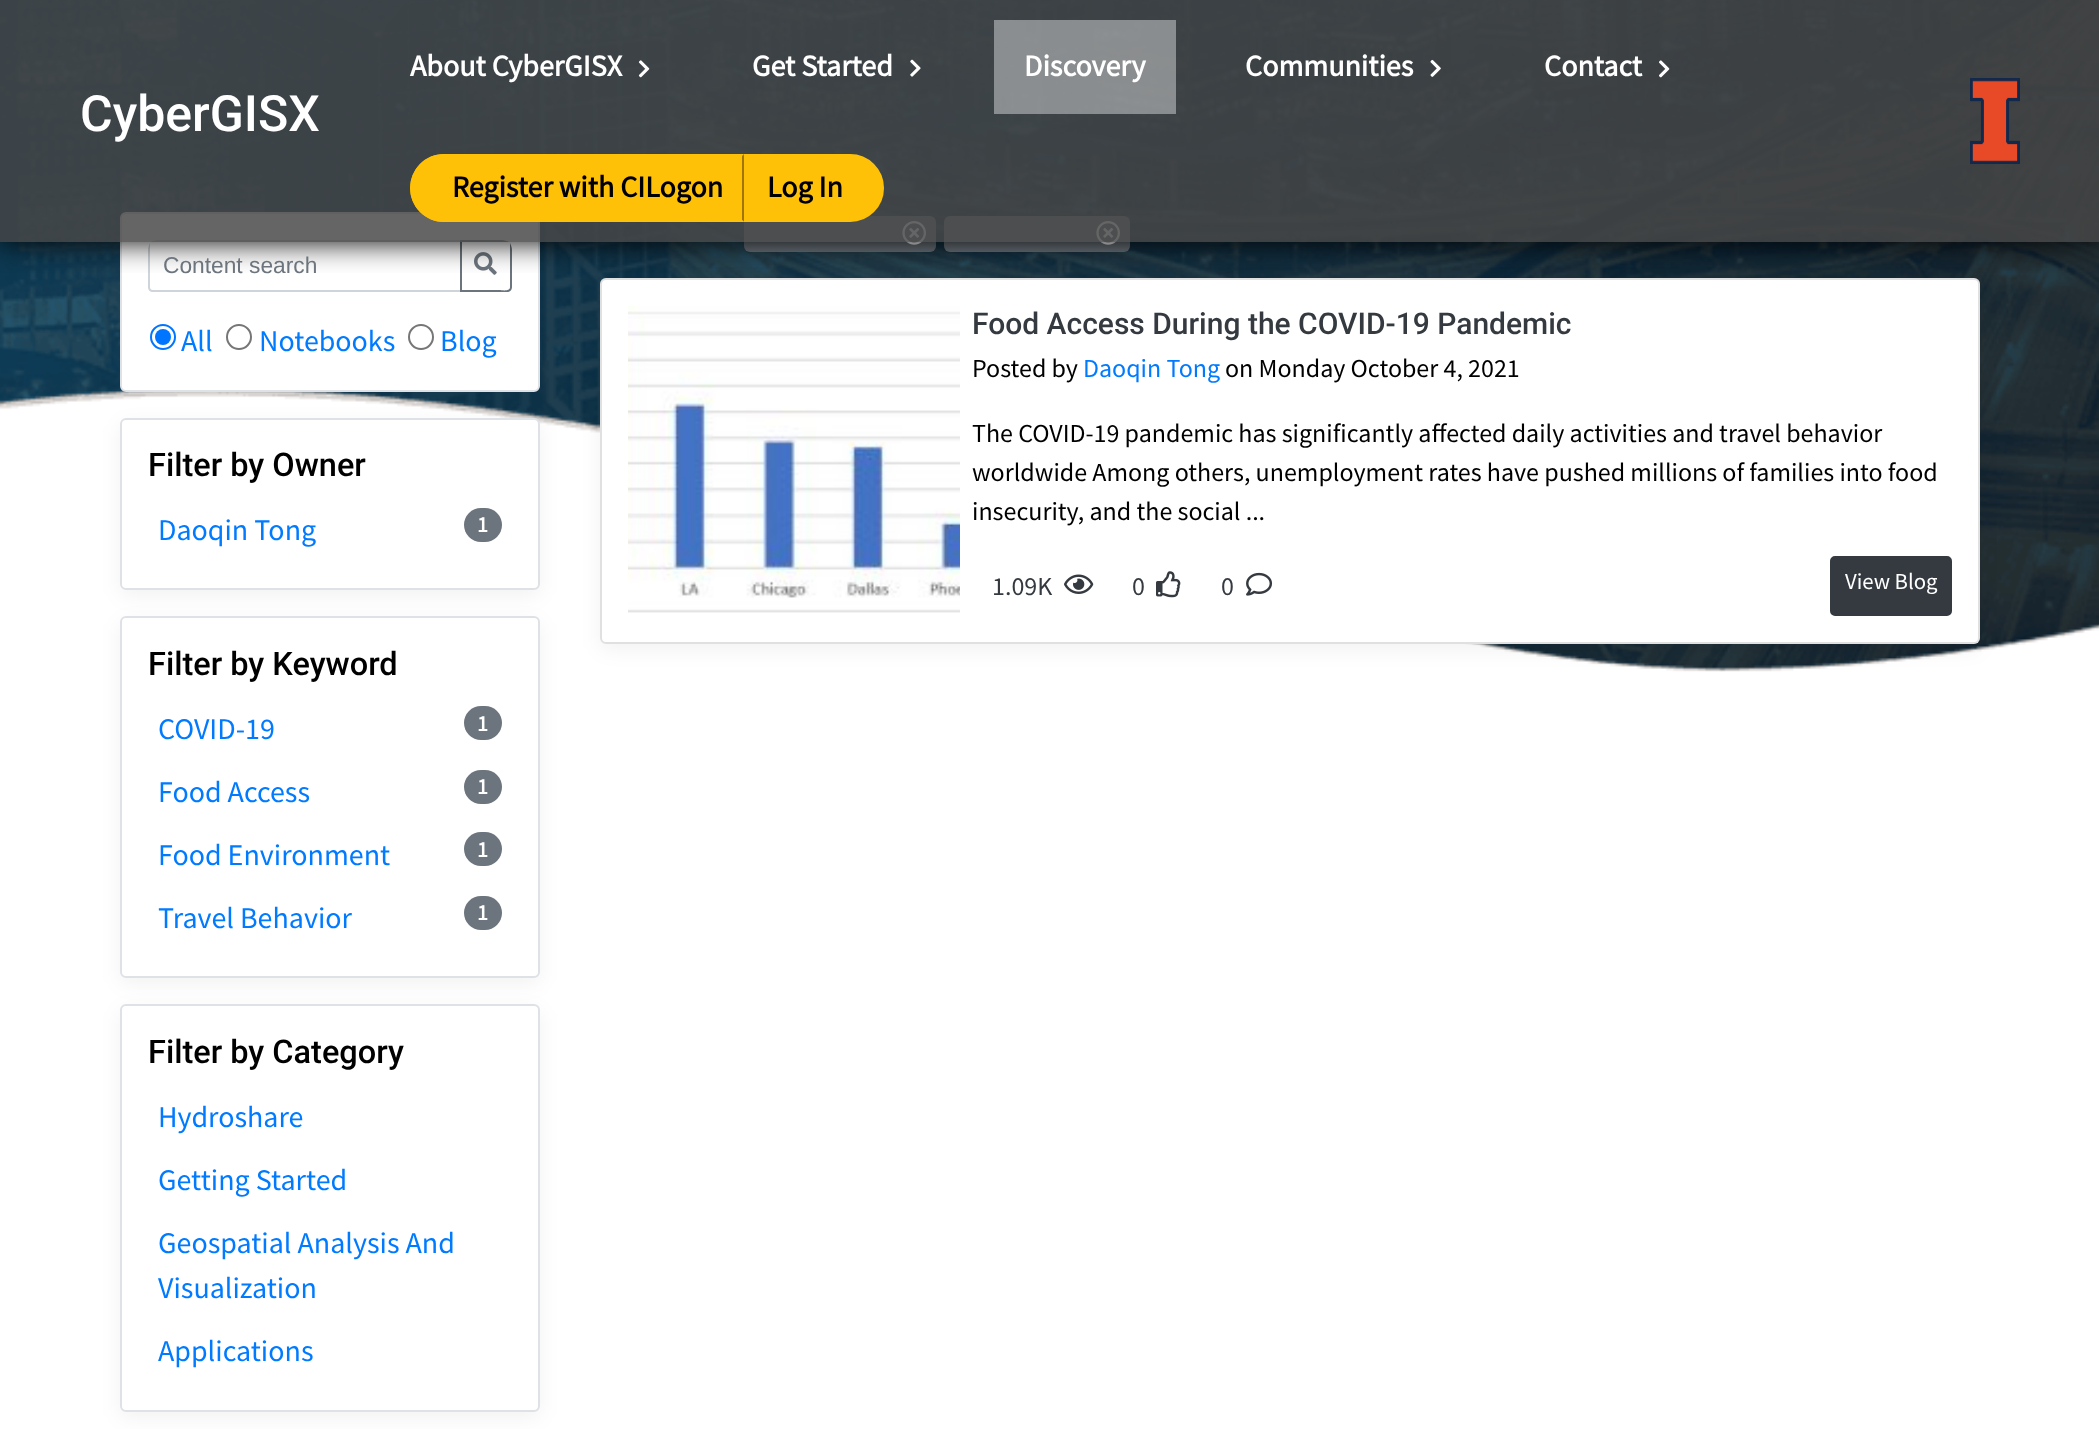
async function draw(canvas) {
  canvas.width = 2099
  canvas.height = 1429
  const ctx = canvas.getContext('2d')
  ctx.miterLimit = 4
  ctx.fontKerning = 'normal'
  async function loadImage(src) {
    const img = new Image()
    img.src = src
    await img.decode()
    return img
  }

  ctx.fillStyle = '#fff'
  ctx.fillRect(0, 0, 2099, 1429)
  ctx.drawImage(await loadImage('image0.png'), 0, 0, 2099, 672)
  ctx.beginPath()
  ctx.roundRect(121, 213, 418, 178, 5)
  ctx.fill()
  ctx.strokeStyle = '#dee2e6'
  ctx.lineWidth = 2
  ctx.stroke()
  ctx.fillStyle = '#ced4da'
  ctx.beginPath()
  ctx.moveTo(153, 242)
  ctx.lineTo(460, 242)
  ctx.lineTo(460, 290)
  ctx.lineTo(153, 290)
  ctx.bezierCurveTo(151, 290, 150, 289, 150, 287)
  ctx.lineTo(150, 245)
  ctx.lineTo(150, 243)
  ctx.bezierCurveTo(149, 245, 148, 248, 148, 250)
  ctx.lineTo(148, 287)
  ctx.bezierCurveTo(148, 290, 150, 292, 153, 292)
  ctx.lineTo(462, 292)
  ctx.lineTo(462, 240)
  ctx.lineTo(158, 240)
  ctx.bezierCurveTo(156, 240, 153, 241, 151, 242)
  ctx.closePath()
  ctx.fill()
  ctx.fillStyle = '#6c757d'
  ctx.beginPath()
  ctx.moveTo(460, 240)
  ctx.lineTo(460, 292)
  ctx.lineTo(507, 292)
  ctx.bezierCurveTo(510, 292, 512, 290, 512, 287)
  ctx.lineTo(512, 250)
  ctx.bezierCurveTo(512, 248, 511, 245, 510, 243)
  ctx.lineTo(510, 287)
  ctx.bezierCurveTo(510, 292, 501, 290, 500, 290)
  ctx.lineTo(462, 290)
  ctx.lineTo(462, 242)
  ctx.lineTo(507, 242)
  ctx.lineTo(509, 242)
  ctx.bezierCurveTo(507, 241, 504, 240, 502, 240)
  ctx.closePath()
  ctx.fill()
  ctx.drawImage(await loadImage('image6.png'), 474, 252, 23, 23)
  ctx.beginPath()
  ctx.roundRect(744, 216, 192, 36, 6)
  ctx.fill()
  ctx.drawImage(await loadImage('image7.png'), 902, 221, 24, 24)
  ctx.beginPath()
  ctx.roundRect(944, 216, 186, 36, 6)
  ctx.fill()
  ctx.drawImage(await loadImage('image7.png'), 1096, 221, 24, 24)
  ctx.fillStyle = '#0000000d'
  ctx.filter = 'blur(10px)'
  ctx.beginPath()
  ctx.roundRect(600, 284, 1380, 366, 6)
  ctx.fill()
  ctx.filter = 'none'
  ctx.fillStyle = '#fff'
  ctx.beginPath()
  ctx.roundRect(600, 278, 1380, 366, 6)
  ctx.fill()
  ctx.beginPath()
  ctx.roundRect(601, 279, 1378, 364, 5)
  ctx.strokeStyle = '#0000001f'
  ctx.stroke()
  ctx.save()
  ctx.beginPath()
  ctx.rect(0, 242, 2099, 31)
  ctx.clip()
  ctx.fillStyle = '#000'
  ctx.filter = 'blur(15px)'
  ctx.beginPath()
  ctx.rect(0, 0, 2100, 242)
  ctx.fill()
  ctx.filter = 'none'
  ctx.restore()
  ctx.fillStyle = '#464646d4'
  ctx.fillRect(0, 0, 2099, 242)
  ctx.font = '500 50px Roboto'
  ctx.fillStyle = '#fff'
  ctx.fillText('CyberGISX', 80, 131)
  ctx.font = 'bold 30px Source Sans Pro'
  ctx.fillText('About CyberGISX', 410, 76)
  ctx.drawImage(await loadImage('image1.png'), 638, 60, 12, 18)
  ctx.fillText('Get Started', 752, 76)
  ctx.drawImage(await loadImage('image2.png'), 910, 59, 11, 18)
  ctx.fillStyle = '#ffffff66'
  ctx.fillRect(994, 20, 182, 94)
  ctx.fillStyle = '#fff'
  ctx.fillText('Discovery', 1024, 76)
  ctx.fillText('Communities', 1245, 76)
  ctx.drawImage(await loadImage('image3.png'), 1430, 59, 11, 18)
  ctx.fillText('Contact', 1544, 76)
  ctx.drawImage(await loadImage('image4.png'), 1659, 60, 11, 18)
  ctx.fillStyle = '#ffc107'
  ctx.beginPath()
  ctx.roundRect(410, 154, 334, 68, [34, 0, 0, 34])
  ctx.fill()
  ctx.beginPath()
  ctx.moveTo(444, 154)
  ctx.bezierCurveTo(434, 154, 426, 158, 420, 164)
  ctx.lineTo(421, 165)
  ctx.bezierCurveTo(427, 160, 435, 156, 444, 156)
  ctx.lineTo(742, 156)
  ctx.lineTo(744, 154)
  ctx.closePath()
  ctx.fill()
  ctx.fillStyle = '#a17600'
  ctx.beginPath()
  ctx.moveTo(744, 154)
  ctx.lineTo(742, 156)
  ctx.lineTo(742, 220)
  ctx.lineTo(744, 222)
  ctx.closePath()
  ctx.fill()
  ctx.fillStyle = '#ffc107'
  ctx.beginPath()
  ctx.moveTo(744, 222)
  ctx.lineTo(742, 220)
  ctx.lineTo(444, 220)
  ctx.bezierCurveTo(435, 220, 427, 216, 421, 211)
  ctx.lineTo(420, 212)
  ctx.bezierCurveTo(426, 218, 434, 222, 444, 222)
  ctx.closePath()
  ctx.fill()
  ctx.beginPath()
  ctx.moveTo(420, 212)
  ctx.bezierCurveTo(407, 199, 407, 177, 420, 164)
  ctx.lineTo(421, 165)
  ctx.bezierCurveTo(409, 177, 409, 199, 421, 211)
  ctx.closePath()
  ctx.fill()
  ctx.fillStyle = '#000'
  ctx.fillText('Register with CILogon', 452, 197)
  ctx.fillStyle = '#ffc107'
  ctx.beginPath()
  ctx.roundRect(745, 155, 138, 66, [0, 33, 33, 0])
  ctx.fill()
  ctx.strokeStyle = '#ffc107'
  ctx.stroke()
  ctx.fillStyle = '#000'
  ctx.fillText('Log In', 767, 197)
  ctx.drawImage(await loadImage('image5.png'), 1970, 78, 50, 86)
  ctx.font = '22.75px Liberation Sans'
  ctx.fillStyle = '#6c757d'
  ctx.fillText('Content search', 163, 273)
  ctx.beginPath()
  ctx.arc(163, 337, 12, 0, 2 * Math.PI)
  ctx.strokeStyle = '#0075ff'
  ctx.stroke()
  ctx.fillStyle = '#0075ff'
  ctx.beginPath()
  ctx.arc(163, 337, 8, 0, 2 * Math.PI)
  ctx.fill()
  ctx.font = '30px Source Sans Pro'
  ctx.fillStyle = '#007bff'
  ctx.fillText('All', 181, 351)
  ctx.beginPath()
  ctx.arc(239, 337, 12, 0, 2 * Math.PI)
  ctx.strokeStyle = '#767676'
  ctx.stroke()
  ctx.fillText('Notebooks', 259, 351)
  ctx.beginPath()
  ctx.arc(421, 337, 12, 0, 2 * Math.PI)
  ctx.stroke()
  ctx.fillText('Blog', 440, 351)
  ctx.fillStyle = '#0000000d'
  ctx.filter = 'blur(10px)'
  ctx.beginPath()
  ctx.roundRect(120, 424, 420, 172, 6)
  ctx.fill()
  ctx.filter = 'none'
  ctx.fillStyle = '#fff'
  ctx.beginPath()
  ctx.roundRect(121, 419, 418, 170, 5)
  ctx.fill()
  ctx.strokeStyle = '#dee2e6'
  ctx.stroke()
  ctx.font = '500 32.5px Roboto'
  ctx.fillStyle = '#000'
  ctx.fillText('Filter by Owner', 148, 476)
  ctx.font = '30px Source Sans Pro'
  ctx.fillStyle = '#007bff'
  ctx.fillText('Daoqin Tong', 158, 540)
  ctx.fillStyle = '#6c757d'
  ctx.beginPath()
  ctx.roundRect(464, 508, 38, 34, 17)
  ctx.fill()
  ctx.font = 'bold 22px Source Sans Pro'
  ctx.fillStyle = '#fff'
  ctx.fillText('1', 477, 532)
  ctx.fillStyle = '#0000000d'
  ctx.filter = 'blur(10px)'
  ctx.beginPath()
  ctx.roundRect(120, 622, 420, 362, 6)
  ctx.fill()
  ctx.filter = 'none'
  ctx.fillStyle = '#fff'
  ctx.beginPath()
  ctx.roundRect(121, 617, 418, 360, 5)
  ctx.fill()
  ctx.stroke()
  ctx.font = '500 32.5px Roboto'
  ctx.fillStyle = '#000'
  ctx.fillText('Filter by Keyword', 148, 675)
  ctx.font = '30px Source Sans Pro'
  ctx.fillStyle = '#007bff'
  ctx.fillText('COVID-19', 158, 739)
  ctx.fillStyle = '#6c757d'
  ctx.beginPath()
  ctx.roundRect(464, 706, 38, 34, 17)
  ctx.fill()
  ctx.font = 'bold 22px Source Sans Pro'
  ctx.fillStyle = '#fff'
  ctx.fillText('1', 477, 731)
  ctx.font = '30px Source Sans Pro'
  ctx.fillStyle = '#007bff'
  ctx.fillText('Food Access', 158, 802)
  ctx.fillStyle = '#6c757d'
  ctx.beginPath()
  ctx.roundRect(464, 770, 38, 34, 17)
  ctx.fill()
  ctx.font = 'bold 22px Source Sans Pro'
  ctx.fillStyle = '#fff'
  ctx.fillText('1', 477, 794)
  ctx.font = '30px Source Sans Pro'
  ctx.fillStyle = '#007bff'
  ctx.fillText('Food Environment', 158, 865)
  ctx.fillStyle = '#6c757d'
  ctx.beginPath()
  ctx.roundRect(464, 832, 38, 34, 17)
  ctx.fill()
  ctx.font = 'bold 22px Source Sans Pro'
  ctx.fillStyle = '#fff'
  ctx.fillText('1', 477, 857)
  ctx.font = '30px Source Sans Pro'
  ctx.fillStyle = '#007bff'
  ctx.fillText('Travel Behavior', 158, 928)
  ctx.fillStyle = '#6c757d'
  ctx.beginPath()
  ctx.roundRect(464, 896, 38, 34, 17)
  ctx.fill()
  ctx.font = 'bold 22px Source Sans Pro'
  ctx.fillStyle = '#fff'
  ctx.fillText('1', 477, 920)
  ctx.fillStyle = '#0000000d'
  ctx.filter = 'blur(10px)'
  ctx.beginPath()
  ctx.roundRect(120, 1010, 420, 408, 6)
  ctx.fill()
  ctx.filter = 'none'
  ctx.fillStyle = '#fff'
  ctx.beginPath()
  ctx.roundRect(121, 1005, 418, 406, 5)
  ctx.fill()
  ctx.stroke()
  ctx.font = '500 32.5px Roboto'
  ctx.fillStyle = '#000'
  ctx.fillText('Filter by Category', 148, 1063)
  ctx.font = '30px Source Sans Pro'
  ctx.fillStyle = '#007bff'
  ctx.fillText('Hydroshare', 158, 1127)
  ctx.fillText('Getting Started', 158, 1190)
  ctx.fillText('Geospatial Analysis And', 158, 1253)
  ctx.fillText('Visualization', 158, 1298)
  ctx.fillText('Applications', 158, 1361)
  ctx.drawImage(await loadImage('image8.png'), 628, 306, 332, 307)
  ctx.font = '500 30px Roboto'
  ctx.fillStyle = '#343a40'
  ctx.fillText('Food Access During the COVID-19 Pandemic', 972, 334)
  ctx.font = '26px Source Sans Pro'
  ctx.fillStyle = '#000'
  ctx.fillText('Posted by', 972, 377)
  ctx.fillStyle = '#007bff'
  ctx.fillText('Daoqin Tong', 1083, 377)
  ctx.fillStyle = '#000'
  ctx.fillText('on Monday October 4, 2021', 1225, 377)
  ctx.fillText('The COVID-19 pandemic has significantly affected daily activities and travel behavior', 972, 442)
  ctx.fillText('worldwide Among others, unemployment rates have pushed millions of families into food', 972, 481)
  ctx.fillText('insecurity, and the social ...', 972, 520)
  ctx.fillStyle = '#343a40'
  ctx.fillText('1.09K', 992, 595)
  ctx.drawImage(await loadImage('image9.png'), 1064, 574, 30, 20)
  ctx.fillText('0', 1132, 595)
  ctx.drawImage(await loadImage('image10.png'), 1156, 571, 25, 27)
  ctx.fillText('0', 1221, 595)
  ctx.drawImage(await loadImage('image11.png'), 1246, 572, 27, 24)
  ctx.beginPath()
  ctx.roundRect(1831, 557, 120, 58, 4)
  ctx.fill()
  ctx.strokeStyle = '#343a40'
  ctx.stroke()
  ctx.font = '22.75px Source Sans Pro'
  ctx.fillStyle = '#fff'
  ctx.fillText('View Blog', 1845, 589)
}

draw(document.querySelector('canvas'))
